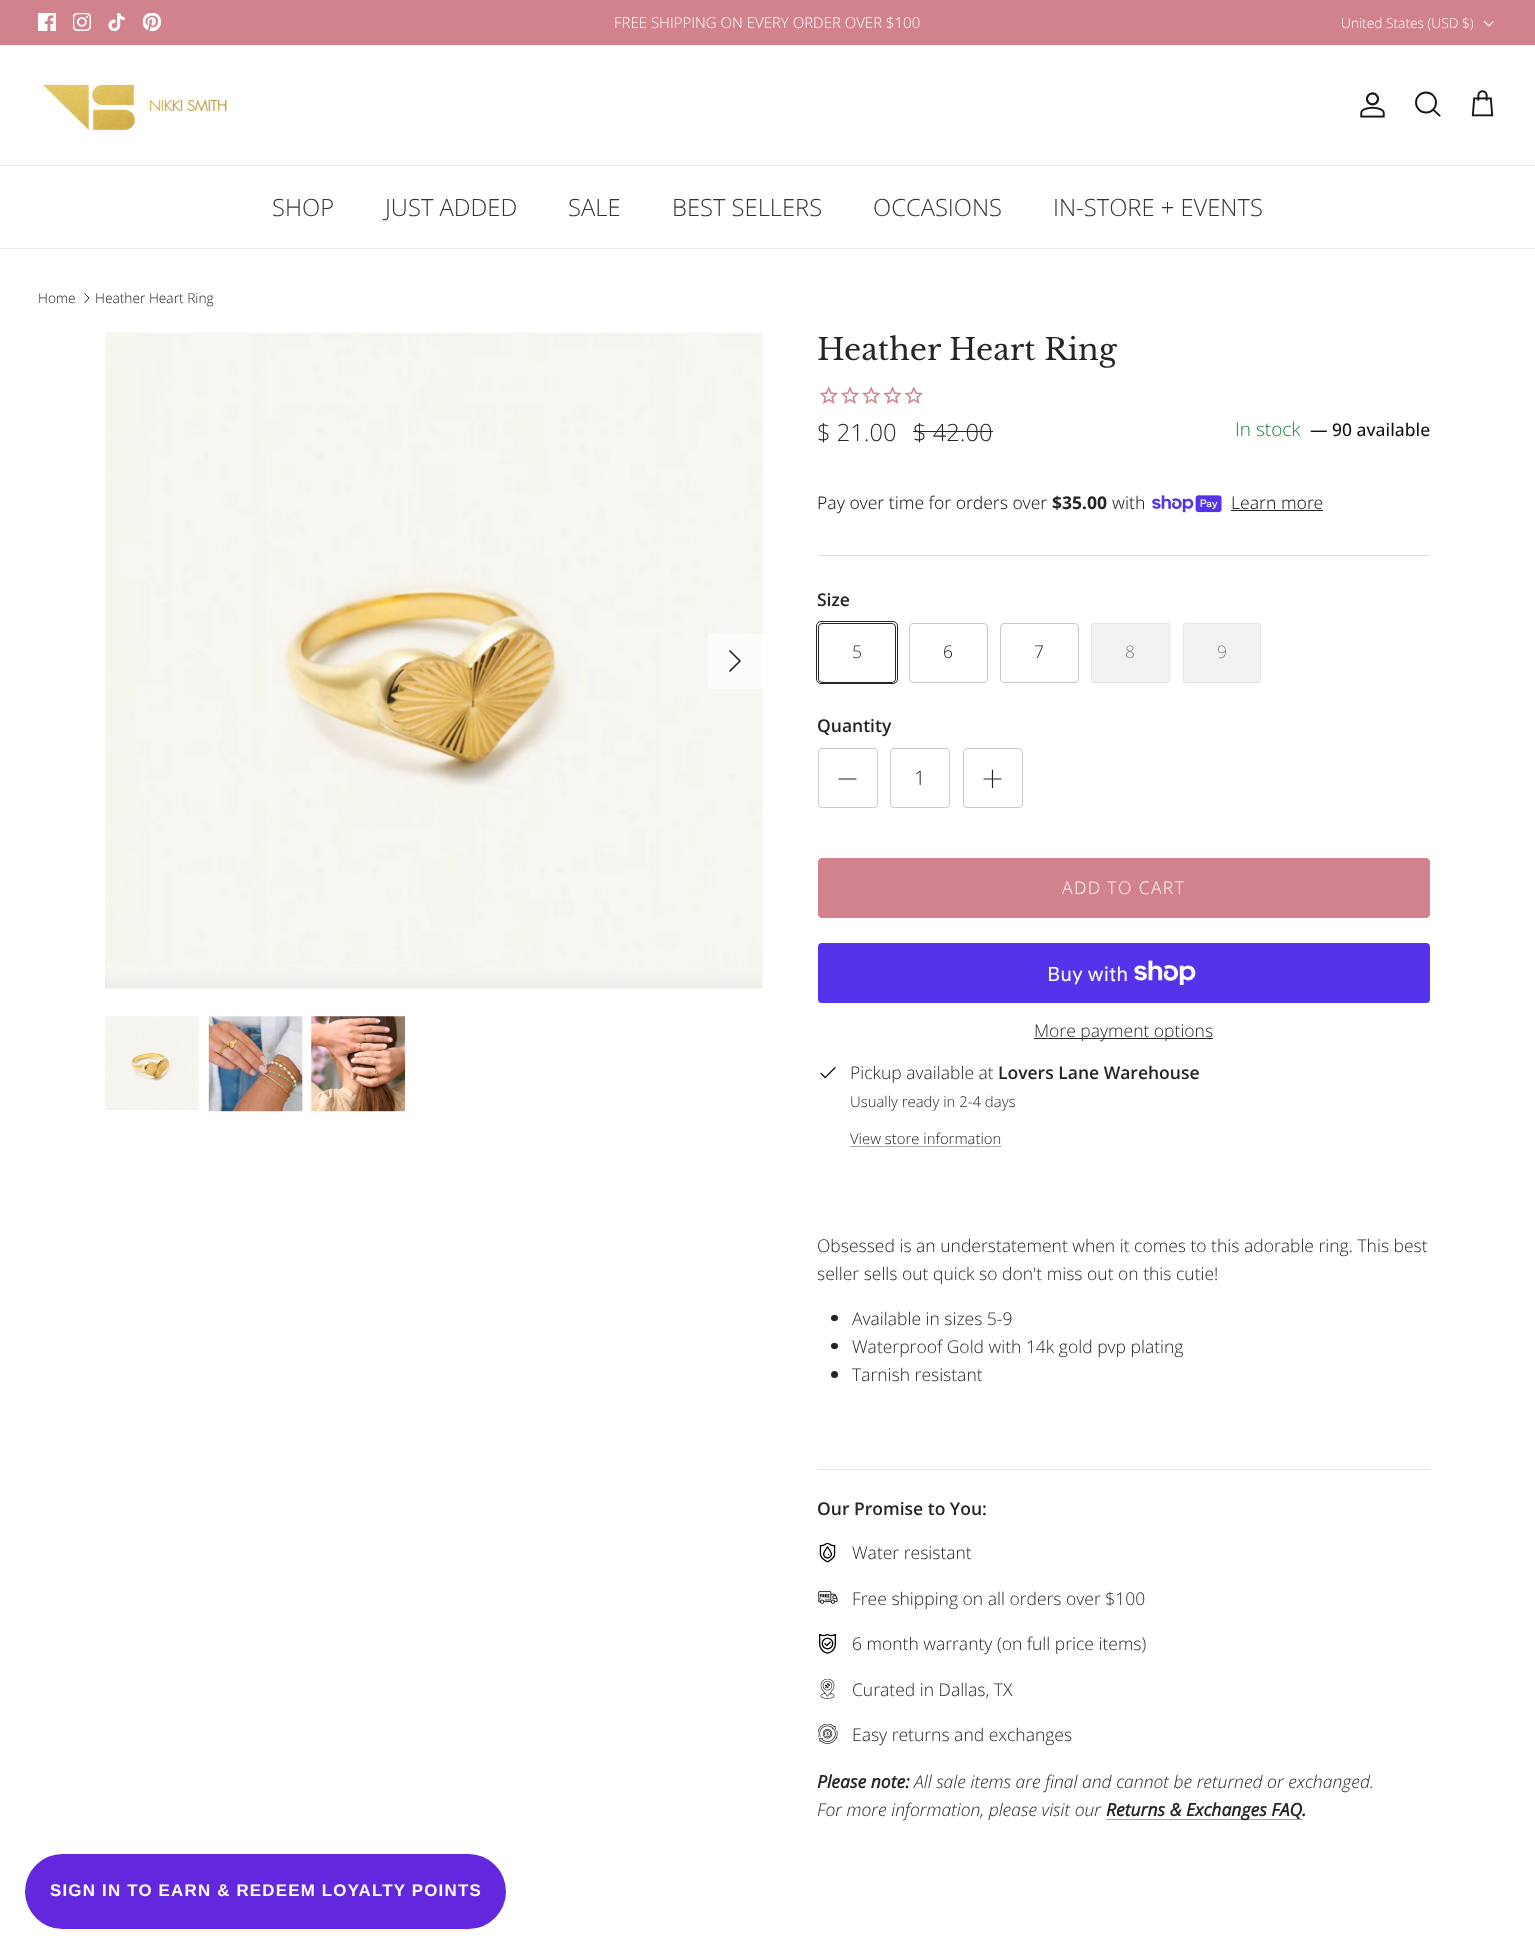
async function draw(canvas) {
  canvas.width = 1535
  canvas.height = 1953
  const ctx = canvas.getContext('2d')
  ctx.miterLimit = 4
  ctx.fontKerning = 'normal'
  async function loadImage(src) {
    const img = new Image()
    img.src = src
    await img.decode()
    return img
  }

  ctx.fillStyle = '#fff'
  ctx.fillRect(0, 0, 1535, 1953)
  ctx.fillStyle = '#d2828d'
  ctx.fillRect(0, 0, 1535, 45)
  ctx.drawImage(await loadImage('image0.png'), 38, 13, 18, 18)
  ctx.drawImage(await loadImage('image1.png'), 73, 13, 18, 18)
  ctx.drawImage(await loadImage('image2.png'), 108, 13, 17, 18)
  ctx.drawImage(await loadImage('image3.png'), 143, 13, 18, 18)
  ctx.font = '300 15px Open Sans'
  ctx.fillStyle = '#fff'
  ctx.fillText('FREE SHIPPING ON EVERY ORDER OVER $100', 614, 28)
  ctx.font = '300 13.75px Open Sans'
  ctx.fillText('United States (USD $)', 1341, 28)
  ctx.beginPath()
  ctx.moveTo(1484.5, 21.5)
  ctx.lineTo(1489, 26)
  ctx.lineTo(1493, 21.5)
  ctx.strokeStyle = '#fff'
  ctx.lineWidth = 1.1
  ctx.lineCap = 'round'
  ctx.lineJoin = 'round'
  ctx.stroke()
  ctx.fillStyle = '#efe7e4'
  ctx.fillRect(0, 165, 1535, 1)
  ctx.drawImage(await loadImage('image4.png'), 43, 84, 184, 47)
  ctx.drawImage(await loadImage('image5.png'), 1360, 92, 25, 26)
  ctx.beginPath()
  ctx.arc(1426, 102.5, 10, 0, 2 * Math.PI)
  ctx.strokeStyle = '#171717'
  ctx.lineWidth = 1.9
  ctx.stroke()
  ctx.beginPath()
  ctx.moveTo(1433.5, 110)
  ctx.lineTo(1439.5, 115.5)
  ctx.lineCap = 'square'
  ctx.lineJoin = 'miter'
  ctx.stroke()
  ctx.drawImage(await loadImage('image6.png'), 1471, 90, 23, 27)
  ctx.fillRect(0, 248, 1535, 1)
  ctx.font = '300 23.75px Open Sans'
  ctx.fillStyle = '#333'
  ctx.fillText('SHOP', 272, 216)
  ctx.fillText('JUST ADDED', 385, 216)
  ctx.fillText('SALE', 568, 216)
  ctx.fillText('BEST SELLERS', 672, 216)
  ctx.fillText('OCCASIONS', 873, 216)
  ctx.fillText('IN-STORE + EVENTS', 1053, 216)
  ctx.font = '300 13.75px Open Sans'
  ctx.fillStyle = '#262526'
  ctx.fillText('Home', 38, 303)
  ctx.beginPath()
  ctx.moveTo(85, 302.5)
  ctx.lineTo(89, 298)
  ctx.lineTo(85, 294)
  ctx.strokeStyle = '#262526'
  ctx.lineWidth = 1
  ctx.lineCap = 'round'
  ctx.lineJoin = 'round'
  ctx.stroke()
  ctx.fillText('Heather Heart Ring', 95, 303)
  ctx.drawImage(await loadImage('image7.png'), 105, 332, 658, 657)
  ctx.fillStyle = '#ffffffb3'
  ctx.beginPath()
  ctx.roundRect(708, 634, 55, 55, [4, 0, 0, 4])
  ctx.fill()
  ctx.beginPath()
  ctx.moveTo(730, 671)
  ctx.lineTo(740, 661)
  ctx.lineTo(730, 651)
  ctx.lineWidth = 1.7
  ctx.stroke()
  ctx.drawImage(await loadImage('image8.png'), 105, 1016, 94, 94)
  ctx.drawImage(await loadImage('image9.png'), 208, 1016, 95, 96)
  ctx.drawImage(await loadImage('image10.png'), 311, 1016, 95, 96)
  ctx.font = '30px Libre Baskerville'
  ctx.fillStyle = '#262526'
  ctx.fillText('Heather Heart Ring', 817, 360)
  ctx.drawImage(await loadImage('image11.png'), 819, 386, 19, 18)
  ctx.drawImage(await loadImage('image12.png'), 840, 386, 20, 18)
  ctx.drawImage(await loadImage('image13.png'), 862, 386, 19, 18)
  ctx.drawImage(await loadImage('image14.png'), 883, 386, 19, 18)
  ctx.drawImage(await loadImage('image11.png'), 904, 386, 19, 18)
  ctx.font = '300 23.75px Open Sans'
  ctx.fillText('$ 21.00', 817, 441)
  ctx.fillText('$ 42.00', 913, 441)
  ctx.fillRect(913, 431, 80, 1)
  ctx.font = '300 19px Open Sans'
  ctx.fillStyle = '#1a7f37'
  ctx.fillText('In stock', 1235, 436)
  ctx.font = '500 17.5px Open Sans'
  ctx.fillStyle = '#111'
  ctx.fillText('— 90 available', 1310, 436)
  ctx.font = '300 17.5px Noto Sans'
  ctx.fillStyle = '#262526'
  ctx.fillText('Pay over time for orders over', 817, 509)
  ctx.font = 'bold 17.5px Noto Sans'
  ctx.fillText('$35.00', 1052, 509)
  ctx.font = '300 17.5px Noto Sans'
  ctx.fillText('with', 1112, 509)
  ctx.drawImage(await loadImage('image15.png'), 1152, 495, 70, 18)
  ctx.fillText('Learn more', 1231, 509)
  ctx.fillRect(1231, 510, 92, 1)
  ctx.fillStyle = '#e2e2e2'
  ctx.fillRect(818, 555, 612, 1)
  ctx.font = '600 17.5px Open Sans'
  ctx.fillStyle = '#262526'
  ctx.fillText('Size', 817, 606)
  ctx.beginPath()
  ctx.roundRect(816.5, 621.5, 81, 62, 4.5)
  ctx.lineWidth = 1
  ctx.lineJoin = 'miter'
  ctx.stroke()
  ctx.fillStyle = '#fff'
  ctx.beginPath()
  ctx.roundRect(818.5, 623.5, 77, 59, 3.5)
  ctx.fill()
  ctx.stroke()
  ctx.font = '300 17.5px Open Sans'
  ctx.fillStyle = '#262526'
  ctx.fillText('5', 852, 658)
  ctx.beginPath()
  ctx.roundRect(909.5, 623.5, 78, 59, 3.5)
  ctx.strokeStyle = '#c9c9c9'
  ctx.stroke()
  ctx.fillText('6', 943, 658)
  ctx.beginPath()
  ctx.roundRect(1000.5, 623.5, 78, 59, 3.5)
  ctx.stroke()
  ctx.fillText('7', 1034, 658)
  ctx.fillStyle = '#f2f2f2'
  ctx.beginPath()
  ctx.roundRect(1091, 623, 79, 60, 4)
  ctx.fill()
  ctx.strokeStyle = '#0000000d'
  ctx.strokeRect(1091.5, 623.5, 78, 59)
  ctx.fillStyle = '#8c8c8c'
  ctx.fillText('8', 1125, 658)
  ctx.fillStyle = '#f2f2f2'
  ctx.beginPath()
  ctx.roundRect(1183, 623, 78, 60, 4)
  ctx.fill()
  ctx.strokeRect(1183.5, 623.5, 77, 59)
  ctx.fillStyle = '#8c8c8c'
  ctx.fillText('9', 1217, 658)
  ctx.font = '600 17.5px Open Sans'
  ctx.fillStyle = '#262526'
  ctx.fillText('Quantity', 817, 732)
  ctx.beginPath()
  ctx.roundRect(818.5, 748.5, 59, 59, 3.5)
  ctx.strokeStyle = '#c9c9c9'
  ctx.stroke()
  ctx.beginPath()
  ctx.moveTo(839, 779)
  ctx.lineTo(856, 779)
  ctx.strokeStyle = '#262526'
  ctx.lineWidth = 1.2
  ctx.lineJoin = 'round'
  ctx.stroke()
  ctx.beginPath()
  ctx.roundRect(890.5, 748.5, 59, 59, 3.5)
  ctx.strokeStyle = '#c9c9c9'
  ctx.lineWidth = 1
  ctx.lineJoin = 'miter'
  ctx.stroke()
  ctx.font = '300 20px Open Sans'
  ctx.fillText('1', 914, 785)
  ctx.beginPath()
  ctx.roundRect(963.5, 748.5, 59, 59, 3.5)
  ctx.stroke()
  ctx.beginPath()
  ctx.moveTo(992.5, 770)
  ctx.lineTo(992.5, 787.5)
  ctx.moveTo(984, 779)
  ctx.lineTo(1001, 779)
  ctx.strokeStyle = '#262526'
  ctx.lineWidth = 1.2
  ctx.lineJoin = 'round'
  ctx.stroke()
  ctx.fillStyle = '#d2828d'
  ctx.beginPath()
  ctx.roundRect(818.5, 858.5, 611, 59, 3.5)
  ctx.fill()
  ctx.strokeStyle = '#d2828d'
  ctx.lineWidth = 1
  ctx.lineJoin = 'miter'
  ctx.stroke()
  ctx.letterSpacing = '1.4px'
  ctx.font = '300 17.5px Open Sans'
  ctx.fillStyle = '#fff'
  ctx.fillText('ADD TO CART', 1062, 894)
  ctx.fillStyle = '#5433eb'
  ctx.beginPath()
  ctx.roundRect(818, 943, 612, 60, 4)
  ctx.fill()
  ctx.letterSpacing = '0px'
  ctx.font = '20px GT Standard'
  ctx.fillStyle = '#fff'
  ctx.fillText('Buy with', 1047, 981)
  ctx.drawImage(await loadImage('image16.png'), 1134, 960, 62, 25)
  ctx.fillStyle = '#262526'
  ctx.fillRect(1034, 1038, 179, 1)
  ctx.font = '300 17.5px Open Sans'
  ctx.fillText('More payment options', 1034, 1037)
  ctx.drawImage(await loadImage('image17.png'), 820, 1067, 16, 12)
  ctx.fillText('Pickup available at', 850, 1079)
  ctx.font = '600 17.5px Open Sans'
  ctx.fillText('Lovers Lane Warehouse', 998, 1079)
  ctx.font = '300 14.9px Open Sans'
  ctx.fillText('Usually ready in 2-4 days', 850, 1107)
  ctx.fillText('View store information', 850, 1144)
  ctx.fillStyle = '#a8a8a8'
  ctx.fillRect(850, 1146, 151, 1)
  ctx.font = '300 17.5px Open Sans'
  ctx.fillStyle = '#262526'
  ctx.fillText('Obsessed is an understatement when it comes to this adorable ring. This best', 817, 1252)
  ctx.fillText('seller sells out quick so don\'t miss out on this cutie!', 817, 1280)
  ctx.beginPath()
  ctx.roundRect(831, 1315, 7, 6, 3)
  ctx.fill()
  ctx.fillText('Available in sizes 5-9', 852, 1325)
  ctx.beginPath()
  ctx.roundRect(831, 1343, 7, 6, 3)
  ctx.fill()
  ctx.fillText('Waterproof Gold with 14k gold pvp plating', 852, 1353)
  ctx.beginPath()
  ctx.arc(834.5, 1374.5, 3.5, 0, 2 * Math.PI)
  ctx.fill()
  ctx.fillText('Tarnish resistant', 852, 1381)
  ctx.fillStyle = '#e2e2e2'
  ctx.fillRect(818, 1469, 612, 1)
  ctx.font = '600 17.5px Open Sans'
  ctx.fillStyle = '#262526'
  ctx.fillText('Our Promise to You:', 817, 1515)
  ctx.drawImage(await loadImage('image18.png'), 819, 1543, 17, 20)
  ctx.font = '300 17.5px Open Sans'
  ctx.fillText('Water resistant', 852, 1559)
  ctx.drawImage(await loadImage('image19.png'), 818, 1591, 20, 13)
  ctx.fillText('Free shipping on all orders over $100', 852, 1605)
  ctx.drawImage(await loadImage('image20.png'), 819, 1634, 17, 20)
  ctx.fillText('6 month warranty (on full price items)', 852, 1650)
  ctx.drawImage(await loadImage('image21.png'), 820, 1679, 15, 20)
  ctx.fillText('Curated in Dallas, TX', 852, 1696)
  ctx.drawImage(await loadImage('image22.png'), 818, 1724, 20, 20)
  ctx.fillText('Easy returns and exchanges', 852, 1741)
  ctx.font = 'italic bold 17.5px Open Sans'
  ctx.fillText('Please note:', 817, 1788)
  ctx.font = 'italic 300 17.5px Open Sans'
  ctx.fillText('All sale items are final and cannot be returned or exchanged.', 914, 1788)
  ctx.fillText('For more information, please visit our', 817, 1816)
  ctx.fillStyle = '#a8a8a8'
  ctx.fillRect(1106, 1819, 197, 1)
  ctx.font = 'italic bold 17.5px Open Sans'
  ctx.fillStyle = '#262526'
  ctx.fillText('Returns & Exchanges FAQ.', 1106, 1816)
  ctx.fillStyle = '#6327de'
  ctx.beginPath()
  ctx.roundRect(25, 1854, 481, 75, 37.5)
  ctx.fill()
  ctx.letterSpacing = '1.2px'
  ctx.font = 'bold 16.9px Liberation Sans'
  ctx.fillStyle = '#fff'
  ctx.fillText('SIGN IN TO EARN & REDEEM LOYALTY POINTS', 50, 1896)
}

draw(document.querySelector('canvas'))
